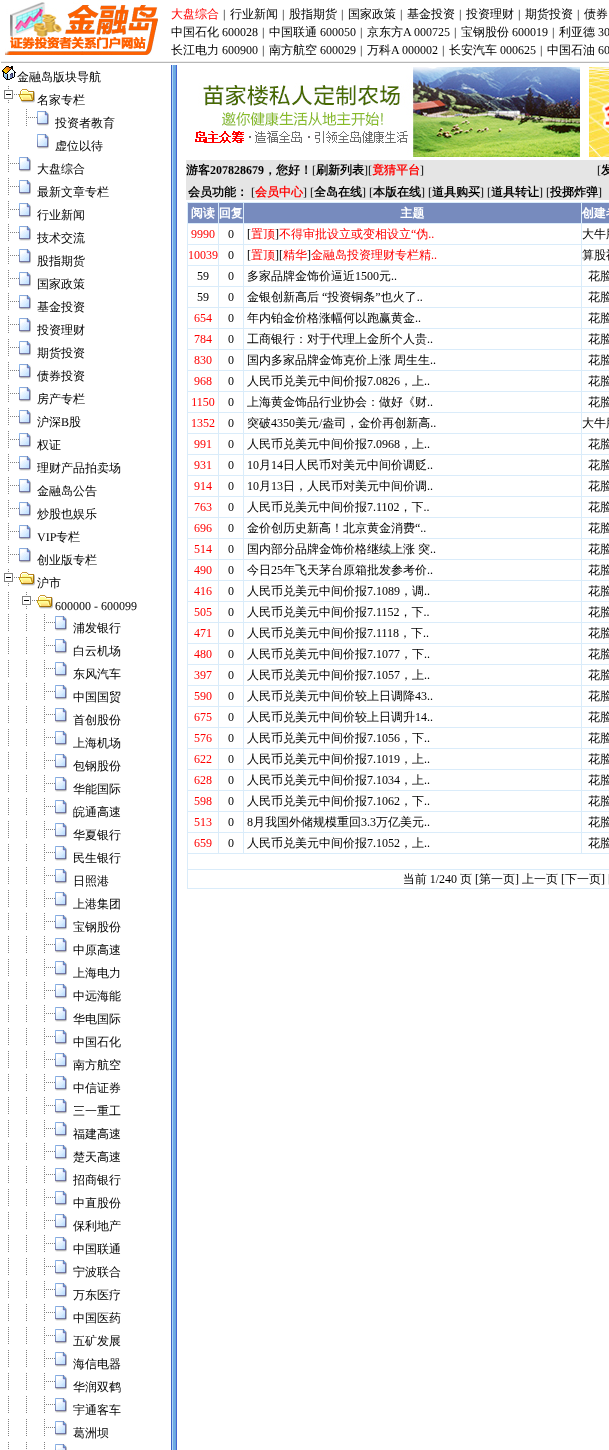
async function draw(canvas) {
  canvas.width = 609
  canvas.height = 1450
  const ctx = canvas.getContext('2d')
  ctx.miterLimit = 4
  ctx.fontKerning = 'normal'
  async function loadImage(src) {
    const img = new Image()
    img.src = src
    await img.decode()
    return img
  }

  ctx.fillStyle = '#fff'
  ctx.fillRect(0, 0, 609, 1450)
  ctx.drawImage(await loadImage('image0.png'), 1, 61, 608, 2)
  ctx.drawImage(await loadImage('image1.png'), 5, 0, 153, 55)
  ctx.font = '500 12px WenQuanYi Zen Hei'
  ctx.fillStyle = '#f00'
  ctx.fillText('大盘综合', 171, 18)
  ctx.font = '12px Liberation Serif'
  ctx.fillStyle = '#000'
  ctx.fillText('|', 223, 18)
  ctx.font = '500 12px WenQuanYi Zen Hei'
  ctx.fillText('行业新闻', 230, 18)
  ctx.font = '12px Liberation Serif'
  ctx.fillText('|', 282, 18)
  ctx.font = '500 12px WenQuanYi Zen Hei'
  ctx.fillText('股指期货', 289, 18)
  ctx.font = '12px Liberation Serif'
  ctx.fillText('|', 341, 18)
  ctx.font = '500 12px WenQuanYi Zen Hei'
  ctx.fillText('国家政策', 348, 18)
  ctx.font = '12px Liberation Serif'
  ctx.fillText('|', 400, 18)
  ctx.font = '500 12px WenQuanYi Zen Hei'
  ctx.fillText('基金投资', 407, 18)
  ctx.font = '12px Liberation Serif'
  ctx.fillText('|', 459, 18)
  ctx.font = '500 12px WenQuanYi Zen Hei'
  ctx.fillText('投资理财', 466, 18)
  ctx.font = '12px Liberation Serif'
  ctx.fillText('|', 518, 18)
  ctx.font = '500 12px WenQuanYi Zen Hei'
  ctx.fillText('期货投资', 525, 18)
  ctx.font = '12px Liberation Serif'
  ctx.fillText('|', 577, 18)
  ctx.font = '500 12px WenQuanYi Zen Hei'
  ctx.fillText('债券', 584, 18)
  ctx.fillText('中国石化', 171, 36)
  ctx.font = '12px Liberation Serif'
  ctx.fillText('600028', 222, 36)
  ctx.fillText('|', 262, 36)
  ctx.font = '500 12px WenQuanYi Zen Hei'
  ctx.fillText('中国联通', 269, 36)
  ctx.font = '12px Liberation Serif'
  ctx.fillText('600050', 320, 36)
  ctx.fillText('|', 360, 36)
  ctx.font = '500 12px WenQuanYi Zen Hei'
  ctx.fillText('京东方', 367, 36)
  ctx.font = '12px Liberation Serif'
  ctx.fillText('A 000725', 403, 36)
  ctx.fillText('|', 454, 36)
  ctx.font = '500 12px WenQuanYi Zen Hei'
  ctx.fillText('宝钢股份', 461, 36)
  ctx.font = '12px Liberation Serif'
  ctx.fillText('600019', 512, 36)
  ctx.fillText('|', 552, 36)
  ctx.font = '500 12px WenQuanYi Zen Hei'
  ctx.fillText('利亚德', 559, 36)
  ctx.font = '12px Liberation Serif'
  ctx.fillText('30', 598, 36)
  ctx.font = '500 12px WenQuanYi Zen Hei'
  ctx.fillText('长江电力', 171, 54)
  ctx.font = '12px Liberation Serif'
  ctx.fillText('600900', 222, 54)
  ctx.fillText('|', 262, 54)
  ctx.font = '500 12px WenQuanYi Zen Hei'
  ctx.fillText('南方航空', 269, 54)
  ctx.font = '12px Liberation Serif'
  ctx.fillText('600029', 320, 54)
  ctx.fillText('|', 360, 54)
  ctx.font = '500 12px WenQuanYi Zen Hei'
  ctx.fillText('万科', 367, 54)
  ctx.font = '12px Liberation Serif'
  ctx.fillText('A 000002', 391, 54)
  ctx.fillText('|', 442, 54)
  ctx.font = '500 12px WenQuanYi Zen Hei'
  ctx.fillText('长安汽车', 449, 54)
  ctx.font = '12px Liberation Serif'
  ctx.fillText('000625', 500, 54)
  ctx.fillText('|', 540, 54)
  ctx.font = '500 12px WenQuanYi Zen Hei'
  ctx.fillText('中国石油', 547, 54)
  ctx.font = '12px Liberation Serif'
  ctx.fillText('60', 598, 54)
  ctx.drawImage(await loadImage('image2.png'), 2, 66, 14, 14)
  ctx.font = '500 12px WenQuanYi Zen Hei'
  ctx.fillText('金融岛版块导航', 17, 81)
  ctx.drawImage(await loadImage('image3.png'), 4, 86, 15, 17)
  ctx.drawImage(await loadImage('image4.png'), 19, 89, 16, 14)
  ctx.fillText('名家专栏', 37, 104)
  ctx.drawImage(await loadImage('image5.png'), 8, 109, 1, 17)
  ctx.drawImage(await loadImage('image6.png'), 26, 109, 11, 17)
  ctx.drawImage(await loadImage('image7.png'), 37, 111, 12, 15)
  ctx.fillText('投资者教育', 55, 127)
  ctx.drawImage(await loadImage('image5.png'), 8, 132, 1, 17)
  ctx.drawImage(await loadImage('image7.png'), 37, 134, 12, 15)
  ctx.fillText('虚位以待', 55, 150)
  ctx.drawImage(await loadImage('image6.png'), 8, 155, 11, 17)
  ctx.drawImage(await loadImage('image7.png'), 19, 157, 12, 15)
  ctx.fillText('大盘综合', 37, 173)
  ctx.drawImage(await loadImage('image6.png'), 8, 178, 11, 17)
  ctx.drawImage(await loadImage('image7.png'), 19, 180, 12, 15)
  ctx.fillText('最新文章专栏', 37, 196)
  ctx.drawImage(await loadImage('image6.png'), 8, 201, 11, 17)
  ctx.drawImage(await loadImage('image7.png'), 19, 203, 12, 15)
  ctx.fillText('行业新闻', 37, 219)
  ctx.drawImage(await loadImage('image6.png'), 8, 224, 11, 17)
  ctx.drawImage(await loadImage('image7.png'), 19, 226, 12, 15)
  ctx.fillText('技术交流', 37, 242)
  ctx.drawImage(await loadImage('image6.png'), 8, 247, 11, 17)
  ctx.drawImage(await loadImage('image7.png'), 19, 249, 12, 15)
  ctx.fillText('股指期货', 37, 265)
  ctx.drawImage(await loadImage('image6.png'), 8, 270, 11, 17)
  ctx.drawImage(await loadImage('image7.png'), 19, 272, 12, 15)
  ctx.fillText('国家政策', 37, 288)
  ctx.drawImage(await loadImage('image6.png'), 8, 293, 11, 17)
  ctx.drawImage(await loadImage('image7.png'), 19, 295, 12, 15)
  ctx.fillText('基金投资', 37, 311)
  ctx.drawImage(await loadImage('image6.png'), 8, 316, 11, 17)
  ctx.drawImage(await loadImage('image7.png'), 19, 318, 12, 15)
  ctx.fillText('投资理财', 37, 334)
  ctx.drawImage(await loadImage('image6.png'), 8, 339, 11, 17)
  ctx.drawImage(await loadImage('image7.png'), 19, 341, 12, 15)
  ctx.fillText('期货投资', 37, 357)
  ctx.drawImage(await loadImage('image6.png'), 8, 362, 11, 17)
  ctx.drawImage(await loadImage('image7.png'), 19, 364, 12, 15)
  ctx.fillText('债券投资', 37, 380)
  ctx.drawImage(await loadImage('image6.png'), 8, 385, 11, 17)
  ctx.drawImage(await loadImage('image7.png'), 19, 387, 12, 15)
  ctx.fillText('房产专栏', 37, 403)
  ctx.drawImage(await loadImage('image6.png'), 8, 408, 11, 17)
  ctx.drawImage(await loadImage('image7.png'), 19, 410, 12, 15)
  ctx.fillText('沪深', 37, 426)
  ctx.font = '12px Liberation Serif'
  ctx.fillText('B', 61, 426)
  ctx.font = '500 12px WenQuanYi Zen Hei'
  ctx.fillText('股', 69, 426)
  ctx.drawImage(await loadImage('image6.png'), 8, 431, 11, 17)
  ctx.drawImage(await loadImage('image7.png'), 19, 433, 12, 15)
  ctx.fillText('权证', 37, 449)
  ctx.drawImage(await loadImage('image6.png'), 8, 454, 11, 17)
  ctx.drawImage(await loadImage('image7.png'), 19, 456, 12, 15)
  ctx.fillText('理财产品拍卖场', 37, 472)
  ctx.drawImage(await loadImage('image6.png'), 8, 477, 11, 17)
  ctx.drawImage(await loadImage('image7.png'), 19, 479, 12, 15)
  ctx.fillText('金融岛公告', 37, 495)
  ctx.drawImage(await loadImage('image6.png'), 8, 500, 11, 17)
  ctx.drawImage(await loadImage('image7.png'), 19, 502, 12, 15)
  ctx.fillText('炒股也娱乐', 37, 518)
  ctx.drawImage(await loadImage('image6.png'), 8, 523, 11, 17)
  ctx.drawImage(await loadImage('image7.png'), 19, 525, 12, 15)
  ctx.font = '12px Liberation Serif'
  ctx.fillText('VIP', 37, 541)
  ctx.font = '500 12px WenQuanYi Zen Hei'
  ctx.fillText('专栏', 56, 541)
  ctx.drawImage(await loadImage('image6.png'), 8, 546, 11, 17)
  ctx.drawImage(await loadImage('image7.png'), 19, 548, 12, 15)
  ctx.fillText('创业版专栏', 37, 564)
  ctx.drawImage(await loadImage('image3.png'), 4, 569, 15, 17)
  ctx.drawImage(await loadImage('image4.png'), 19, 572, 16, 14)
  ctx.fillText('沪市', 37, 587)
  ctx.drawImage(await loadImage('image5.png'), 8, 592, 1, 17)
  ctx.drawImage(await loadImage('image3.png'), 22, 592, 15, 17)
  ctx.drawImage(await loadImage('image4.png'), 37, 595, 16, 14)
  ctx.font = '12px Liberation Serif'
  ctx.fillText('600000 - 600099', 55, 610)
  ctx.drawImage(await loadImage('image5.png'), 8, 614, 1, 17)
  ctx.drawImage(await loadImage('image5.png'), 26, 614, 1, 17)
  ctx.drawImage(await loadImage('image6.png'), 44, 614, 11, 17)
  ctx.drawImage(await loadImage('image7.png'), 55, 616, 12, 15)
  ctx.font = '500 12px WenQuanYi Zen Hei'
  ctx.fillText('浦发银行', 73, 632)
  ctx.drawImage(await loadImage('image5.png'), 8, 637, 1, 17)
  ctx.drawImage(await loadImage('image5.png'), 26, 637, 1, 17)
  ctx.drawImage(await loadImage('image6.png'), 44, 637, 11, 17)
  ctx.drawImage(await loadImage('image7.png'), 55, 639, 12, 15)
  ctx.fillText('白云机场', 73, 655)
  ctx.drawImage(await loadImage('image5.png'), 8, 660, 1, 17)
  ctx.drawImage(await loadImage('image5.png'), 26, 660, 1, 17)
  ctx.drawImage(await loadImage('image6.png'), 44, 660, 11, 17)
  ctx.drawImage(await loadImage('image7.png'), 55, 662, 12, 15)
  ctx.fillText('东风汽车', 73, 678)
  ctx.drawImage(await loadImage('image5.png'), 8, 683, 1, 17)
  ctx.drawImage(await loadImage('image5.png'), 26, 683, 1, 17)
  ctx.drawImage(await loadImage('image6.png'), 44, 683, 11, 17)
  ctx.drawImage(await loadImage('image7.png'), 55, 685, 12, 15)
  ctx.fillText('中国国贸', 73, 701)
  ctx.drawImage(await loadImage('image5.png'), 8, 706, 1, 17)
  ctx.drawImage(await loadImage('image5.png'), 26, 706, 1, 17)
  ctx.drawImage(await loadImage('image6.png'), 44, 706, 11, 17)
  ctx.drawImage(await loadImage('image7.png'), 55, 708, 12, 15)
  ctx.fillText('首创股份', 73, 724)
  ctx.drawImage(await loadImage('image5.png'), 8, 729, 1, 17)
  ctx.drawImage(await loadImage('image5.png'), 26, 729, 1, 17)
  ctx.drawImage(await loadImage('image6.png'), 44, 729, 11, 17)
  ctx.drawImage(await loadImage('image7.png'), 55, 731, 12, 15)
  ctx.fillText('上海机场', 73, 747)
  ctx.drawImage(await loadImage('image5.png'), 8, 752, 1, 17)
  ctx.drawImage(await loadImage('image5.png'), 26, 752, 1, 17)
  ctx.drawImage(await loadImage('image6.png'), 44, 752, 11, 17)
  ctx.drawImage(await loadImage('image7.png'), 55, 754, 12, 15)
  ctx.fillText('包钢股份', 73, 770)
  ctx.drawImage(await loadImage('image5.png'), 8, 775, 1, 17)
  ctx.drawImage(await loadImage('image5.png'), 26, 775, 1, 17)
  ctx.drawImage(await loadImage('image6.png'), 44, 775, 11, 17)
  ctx.drawImage(await loadImage('image7.png'), 55, 777, 12, 15)
  ctx.fillText('华能国际', 73, 793)
  ctx.drawImage(await loadImage('image5.png'), 8, 798, 1, 17)
  ctx.drawImage(await loadImage('image5.png'), 26, 798, 1, 17)
  ctx.drawImage(await loadImage('image6.png'), 44, 798, 11, 17)
  ctx.drawImage(await loadImage('image7.png'), 55, 800, 12, 15)
  ctx.fillText('皖通高速', 73, 816)
  ctx.drawImage(await loadImage('image5.png'), 8, 821, 1, 17)
  ctx.drawImage(await loadImage('image5.png'), 26, 821, 1, 17)
  ctx.drawImage(await loadImage('image6.png'), 44, 821, 11, 17)
  ctx.drawImage(await loadImage('image7.png'), 55, 823, 12, 15)
  ctx.fillText('华夏银行', 73, 839)
  ctx.drawImage(await loadImage('image5.png'), 8, 844, 1, 17)
  ctx.drawImage(await loadImage('image5.png'), 26, 844, 1, 17)
  ctx.drawImage(await loadImage('image6.png'), 44, 844, 11, 17)
  ctx.drawImage(await loadImage('image7.png'), 55, 846, 12, 15)
  ctx.fillText('民生银行', 73, 862)
  ctx.drawImage(await loadImage('image5.png'), 8, 867, 1, 17)
  ctx.drawImage(await loadImage('image5.png'), 26, 867, 1, 17)
  ctx.drawImage(await loadImage('image6.png'), 44, 867, 11, 17)
  ctx.drawImage(await loadImage('image7.png'), 55, 869, 12, 15)
  ctx.fillText('日照港', 73, 885)
  ctx.drawImage(await loadImage('image5.png'), 8, 890, 1, 17)
  ctx.drawImage(await loadImage('image5.png'), 26, 890, 1, 17)
  ctx.drawImage(await loadImage('image6.png'), 44, 890, 11, 17)
  ctx.drawImage(await loadImage('image7.png'), 55, 892, 12, 15)
  ctx.fillText('上港集团', 73, 908)
  ctx.drawImage(await loadImage('image5.png'), 8, 913, 1, 17)
  ctx.drawImage(await loadImage('image5.png'), 26, 913, 1, 17)
  ctx.drawImage(await loadImage('image6.png'), 44, 913, 11, 17)
  ctx.drawImage(await loadImage('image7.png'), 55, 915, 12, 15)
  ctx.fillText('宝钢股份', 73, 931)
  ctx.drawImage(await loadImage('image5.png'), 8, 936, 1, 17)
  ctx.drawImage(await loadImage('image5.png'), 26, 936, 1, 17)
  ctx.drawImage(await loadImage('image6.png'), 44, 936, 11, 17)
  ctx.drawImage(await loadImage('image7.png'), 55, 938, 12, 15)
  ctx.fillText('中原高速', 73, 954)
  ctx.drawImage(await loadImage('image5.png'), 8, 959, 1, 17)
  ctx.drawImage(await loadImage('image5.png'), 26, 959, 1, 17)
  ctx.drawImage(await loadImage('image6.png'), 44, 959, 11, 17)
  ctx.drawImage(await loadImage('image7.png'), 55, 961, 12, 15)
  ctx.fillText('上海电力', 73, 977)
  ctx.drawImage(await loadImage('image5.png'), 8, 982, 1, 17)
  ctx.drawImage(await loadImage('image5.png'), 26, 982, 1, 17)
  ctx.drawImage(await loadImage('image6.png'), 44, 982, 11, 17)
  ctx.drawImage(await loadImage('image7.png'), 55, 984, 12, 15)
  ctx.fillText('中远海能', 73, 1000)
  ctx.drawImage(await loadImage('image5.png'), 8, 1005, 1, 17)
  ctx.drawImage(await loadImage('image5.png'), 26, 1005, 1, 17)
  ctx.drawImage(await loadImage('image6.png'), 44, 1005, 11, 17)
  ctx.drawImage(await loadImage('image7.png'), 55, 1007, 12, 15)
  ctx.fillText('华电国际', 73, 1023)
  ctx.drawImage(await loadImage('image5.png'), 8, 1028, 1, 17)
  ctx.drawImage(await loadImage('image5.png'), 26, 1028, 1, 17)
  ctx.drawImage(await loadImage('image6.png'), 44, 1028, 11, 17)
  ctx.drawImage(await loadImage('image7.png'), 55, 1030, 12, 15)
  ctx.fillText('中国石化', 73, 1046)
  ctx.drawImage(await loadImage('image5.png'), 8, 1051, 1, 17)
  ctx.drawImage(await loadImage('image5.png'), 26, 1051, 1, 17)
  ctx.drawImage(await loadImage('image6.png'), 44, 1051, 11, 17)
  ctx.drawImage(await loadImage('image7.png'), 55, 1053, 12, 15)
  ctx.fillText('南方航空', 73, 1069)
  ctx.drawImage(await loadImage('image5.png'), 8, 1074, 1, 17)
  ctx.drawImage(await loadImage('image5.png'), 26, 1074, 1, 17)
  ctx.drawImage(await loadImage('image6.png'), 44, 1074, 11, 17)
  ctx.drawImage(await loadImage('image7.png'), 55, 1076, 12, 15)
  ctx.fillText('中信证券', 73, 1092)
  ctx.drawImage(await loadImage('image5.png'), 8, 1097, 1, 17)
  ctx.drawImage(await loadImage('image5.png'), 26, 1097, 1, 17)
  ctx.drawImage(await loadImage('image6.png'), 44, 1097, 11, 17)
  ctx.drawImage(await loadImage('image7.png'), 55, 1099, 12, 15)
  ctx.fillText('三一重工', 73, 1115)
  ctx.drawImage(await loadImage('image5.png'), 8, 1120, 1, 17)
  ctx.drawImage(await loadImage('image5.png'), 26, 1120, 1, 17)
  ctx.drawImage(await loadImage('image6.png'), 44, 1120, 11, 17)
  ctx.drawImage(await loadImage('image7.png'), 55, 1122, 12, 15)
  ctx.fillText('福建高速', 73, 1138)
  ctx.drawImage(await loadImage('image5.png'), 8, 1143, 1, 17)
  ctx.drawImage(await loadImage('image5.png'), 26, 1143, 1, 17)
  ctx.drawImage(await loadImage('image6.png'), 44, 1143, 11, 17)
  ctx.drawImage(await loadImage('image7.png'), 55, 1145, 12, 15)
  ctx.fillText('楚天高速', 73, 1161)
  ctx.drawImage(await loadImage('image5.png'), 8, 1166, 1, 17)
  ctx.drawImage(await loadImage('image5.png'), 26, 1166, 1, 17)
  ctx.drawImage(await loadImage('image6.png'), 44, 1166, 11, 17)
  ctx.drawImage(await loadImage('image7.png'), 55, 1168, 12, 15)
  ctx.fillText('招商银行', 73, 1184)
  ctx.drawImage(await loadImage('image5.png'), 8, 1189, 1, 17)
  ctx.drawImage(await loadImage('image5.png'), 26, 1189, 1, 17)
  ctx.drawImage(await loadImage('image6.png'), 44, 1189, 11, 17)
  ctx.drawImage(await loadImage('image7.png'), 55, 1191, 12, 15)
  ctx.fillText('中直股份', 73, 1207)
  ctx.drawImage(await loadImage('image5.png'), 8, 1212, 1, 17)
  ctx.drawImage(await loadImage('image5.png'), 26, 1212, 1, 17)
  ctx.drawImage(await loadImage('image6.png'), 44, 1212, 11, 17)
  ctx.drawImage(await loadImage('image7.png'), 55, 1214, 12, 15)
  ctx.fillText('保利地产', 73, 1230)
  ctx.drawImage(await loadImage('image5.png'), 8, 1235, 1, 17)
  ctx.drawImage(await loadImage('image5.png'), 26, 1235, 1, 17)
  ctx.drawImage(await loadImage('image6.png'), 44, 1235, 11, 17)
  ctx.drawImage(await loadImage('image7.png'), 55, 1237, 12, 15)
  ctx.fillText('中国联通', 73, 1253)
  ctx.drawImage(await loadImage('image5.png'), 8, 1258, 1, 17)
  ctx.drawImage(await loadImage('image5.png'), 26, 1258, 1, 17)
  ctx.drawImage(await loadImage('image6.png'), 44, 1258, 11, 17)
  ctx.drawImage(await loadImage('image7.png'), 55, 1260, 12, 15)
  ctx.fillText('宁波联合', 73, 1276)
  ctx.drawImage(await loadImage('image5.png'), 8, 1281, 1, 17)
  ctx.drawImage(await loadImage('image5.png'), 26, 1281, 1, 17)
  ctx.drawImage(await loadImage('image6.png'), 44, 1281, 11, 17)
  ctx.drawImage(await loadImage('image7.png'), 55, 1283, 12, 15)
  ctx.fillText('万东医疗', 73, 1299)
  ctx.drawImage(await loadImage('image5.png'), 8, 1304, 1, 17)
  ctx.drawImage(await loadImage('image5.png'), 26, 1304, 1, 17)
  ctx.drawImage(await loadImage('image6.png'), 44, 1304, 11, 17)
  ctx.drawImage(await loadImage('image7.png'), 55, 1306, 12, 15)
  ctx.fillText('中国医药', 73, 1322)
  ctx.drawImage(await loadImage('image5.png'), 8, 1327, 1, 17)
  ctx.drawImage(await loadImage('image5.png'), 26, 1327, 1, 17)
  ctx.drawImage(await loadImage('image6.png'), 44, 1327, 11, 17)
  ctx.drawImage(await loadImage('image7.png'), 55, 1329, 12, 15)
  ctx.fillText('五矿发展', 73, 1345)
  ctx.drawImage(await loadImage('image5.png'), 8, 1350, 1, 17)
  ctx.drawImage(await loadImage('image5.png'), 26, 1350, 1, 17)
  ctx.drawImage(await loadImage('image6.png'), 44, 1350, 11, 17)
  ctx.drawImage(await loadImage('image7.png'), 55, 1352, 12, 15)
  ctx.fillText('海信电器', 73, 1368)
  ctx.drawImage(await loadImage('image5.png'), 8, 1373, 1, 17)
  ctx.drawImage(await loadImage('image5.png'), 26, 1373, 1, 17)
  ctx.drawImage(await loadImage('image6.png'), 44, 1373, 11, 17)
  ctx.drawImage(await loadImage('image7.png'), 55, 1375, 12, 15)
  ctx.fillText('华润双鹤', 73, 1391)
  ctx.drawImage(await loadImage('image5.png'), 8, 1396, 1, 17)
  ctx.drawImage(await loadImage('image5.png'), 26, 1396, 1, 17)
  ctx.drawImage(await loadImage('image6.png'), 44, 1396, 11, 17)
  ctx.drawImage(await loadImage('image7.png'), 55, 1398, 12, 15)
  ctx.fillText('宇通客车', 73, 1414)
  ctx.drawImage(await loadImage('image5.png'), 8, 1419, 1, 17)
  ctx.drawImage(await loadImage('image5.png'), 26, 1419, 1, 17)
  ctx.drawImage(await loadImage('image6.png'), 44, 1419, 11, 17)
  ctx.drawImage(await loadImage('image7.png'), 55, 1421, 12, 15)
  ctx.fillText('葛洲坝', 73, 1437)
  ctx.drawImage(await loadImage('image8.png'), 8, 1442, 1, 7)
  ctx.drawImage(await loadImage('image8.png'), 26, 1442, 1, 7)
  ctx.drawImage(await loadImage('image8.png'), 44, 1442, 1, 7)
  ctx.drawImage(await loadImage('image9.png'), 55, 1444, 12, 6)
  ctx.drawImage(await loadImage('image10.png'), 171, 65, 6, 1385)
  ctx.drawImage(await loadImage('image11.png'), 195, 67, 385, 90)
  ctx.drawImage(await loadImage('image12.png'), 589, 67, 20, 90)
  ctx.fillStyle = '#e5e5e5'
  ctx.fillRect(186, 160, 423, 40)
  ctx.font = 'bold 12px WenQuanYi Zen Hei'
  ctx.fillStyle = '#000'
  ctx.fillText('游客', 186, 174)
  ctx.font = 'bold 12px Liberation Serif'
  ctx.fillText('207828679', 210, 174)
  ctx.font = 'bold 12px WenQuanYi Zen Hei'
  ctx.fillText('，您好！', 264, 174)
  ctx.font = '12px Liberation Serif'
  ctx.fillText('[', 312, 174)
  ctx.font = 'bold 12px WenQuanYi Zen Hei'
  ctx.fillText('刷新列表', 316, 174)
  ctx.font = '12px Liberation Serif'
  ctx.fillText('][', 364, 174)
  ctx.font = 'bold 12px WenQuanYi Zen Hei'
  ctx.fillStyle = '#f00'
  ctx.fillText('竟猜平台', 372, 174)
  ctx.font = '12px Liberation Serif'
  ctx.fillStyle = '#000'
  ctx.fillText(']', 420, 174)
  ctx.fillText('[', 597, 174)
  ctx.font = 'bold 12px WenQuanYi Zen Hei'
  ctx.fillText('发', 601, 174)
  ctx.fillText('会员功能：', 188, 196)
  ctx.font = '12px Liberation Serif'
  ctx.fillText('[', 251, 196)
  ctx.font = 'bold 12px WenQuanYi Zen Hei'
  ctx.fillStyle = '#f00'
  ctx.fillText('会员中心', 255, 196)
  ctx.font = '12px Liberation Serif'
  ctx.fillStyle = '#000'
  ctx.fillText('] [', 303, 196)
  ctx.font = 'bold 12px WenQuanYi Zen Hei'
  ctx.fillText('全岛在线', 314, 196)
  ctx.font = '12px Liberation Serif'
  ctx.fillText('] [', 362, 196)
  ctx.font = 'bold 12px WenQuanYi Zen Hei'
  ctx.fillText('本版在线', 373, 196)
  ctx.font = '12px Liberation Serif'
  ctx.fillText('] [', 421, 196)
  ctx.font = 'bold 12px WenQuanYi Zen Hei'
  ctx.fillText('道具购买', 432, 196)
  ctx.font = '12px Liberation Serif'
  ctx.fillText('] [', 480, 196)
  ctx.font = 'bold 12px WenQuanYi Zen Hei'
  ctx.fillText('道具转让', 491, 196)
  ctx.font = '12px Liberation Serif'
  ctx.fillText('] [', 539, 196)
  ctx.font = 'bold 12px WenQuanYi Zen Hei'
  ctx.fillText('投掷炸弹', 550, 196)
  ctx.font = '12px Liberation Serif'
  ctx.fillText(']', 598, 196)
  ctx.drawImage(await loadImage('image13.png'), 187, 202, 422, 687)
}

draw(document.querySelector('canvas'))
